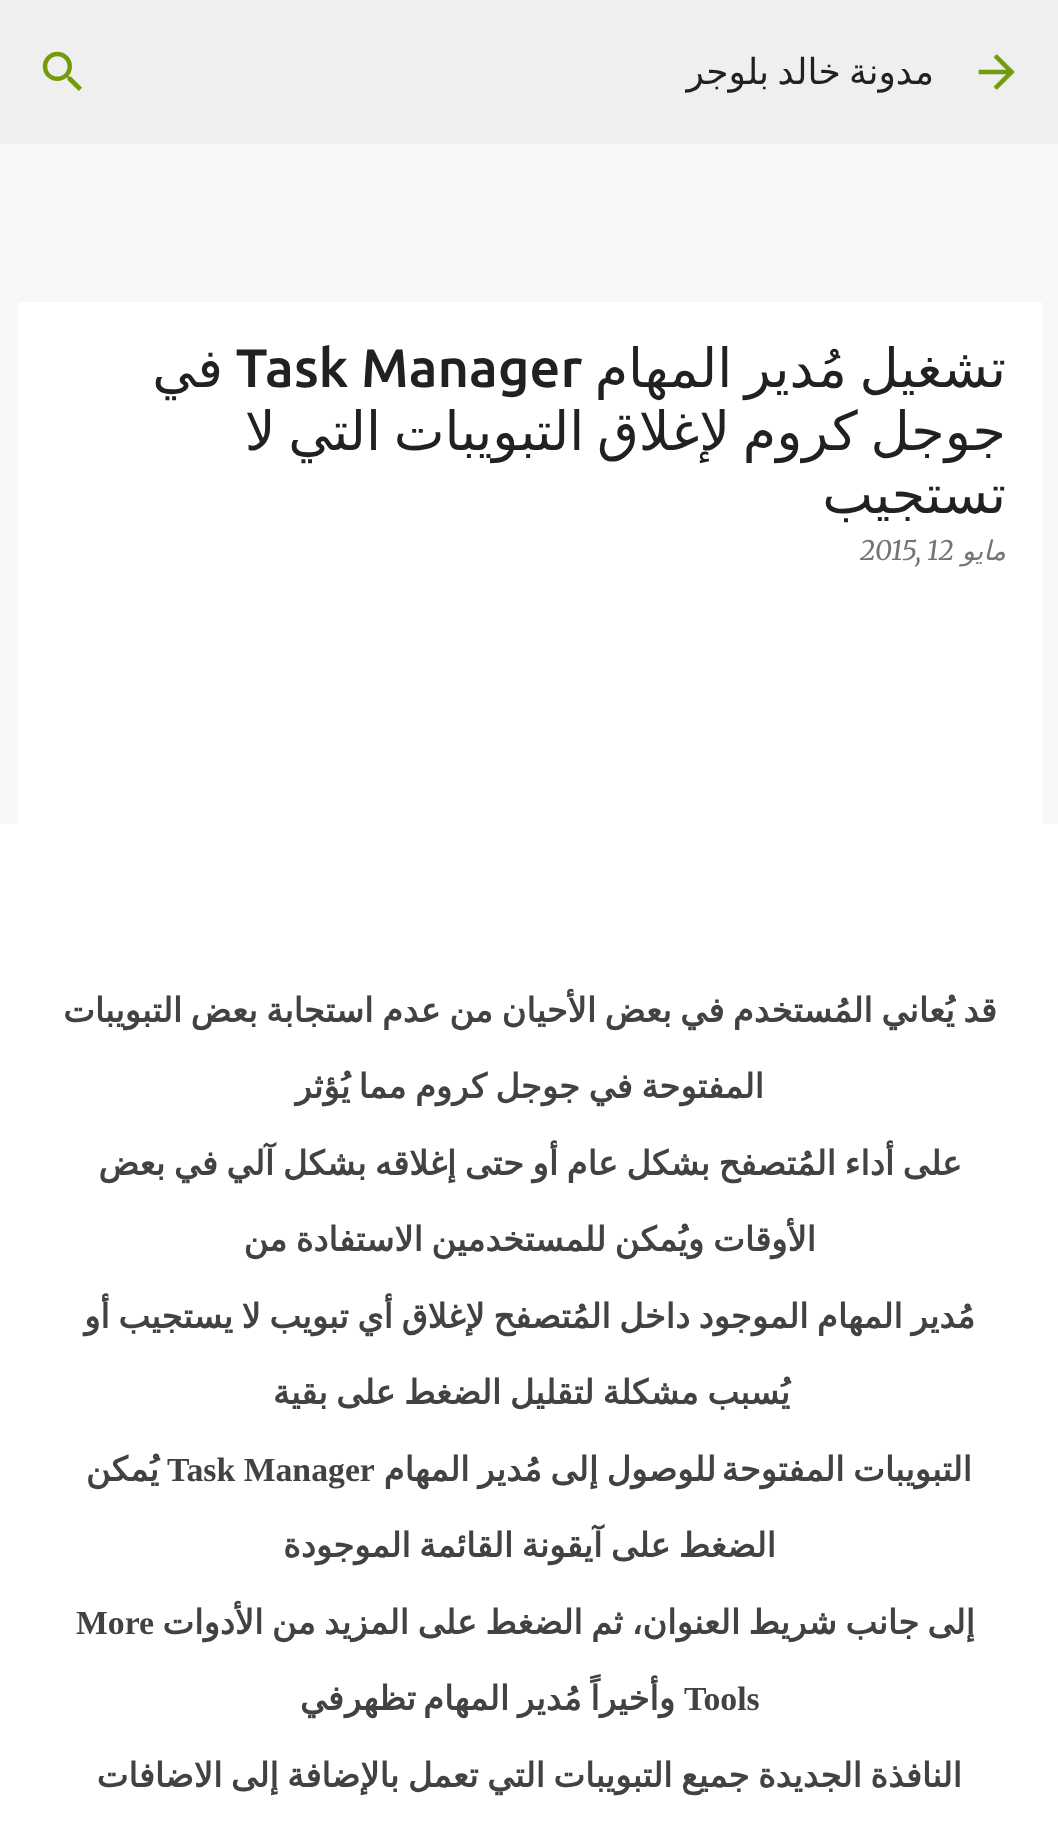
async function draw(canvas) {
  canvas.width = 1058
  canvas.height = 1837
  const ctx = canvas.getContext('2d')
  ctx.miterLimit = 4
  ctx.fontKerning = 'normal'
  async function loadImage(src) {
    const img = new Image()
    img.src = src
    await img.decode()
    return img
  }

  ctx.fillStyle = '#f7f7f7'
  ctx.fillRect(0, 0, 1058, 1837)
  ctx.fillStyle = '#efefef'
  ctx.fillRect(0, 0, 1058, 144)
  ctx.drawImage(await loadImage('image0.png'), 978, 54, 37, 36)
  ctx.wordSpacing = '-3px'
  ctx.direction = 'rtl'
  ctx.font = '36px DejaVu Sans'
  ctx.fillStyle = '#212121'
  ctx.fillText('مدونة خالد بلوجر', 934, 84)
  ctx.drawImage(await loadImage('image1.png'), 42, 51, 40, 40)
  ctx.fillStyle = '#fff'
  ctx.fillRect(0, 824, 1058, 1013)
  ctx.fillRect(18, 302, 1024, 522)
  ctx.wordSpacing = '-4.5px'
  ctx.font = '54px DejaVu Sans'
  ctx.fillStyle = '#212121'
  ctx.fillText('تشغيل مُدير المهام', 1006, 387)
  ctx.wordSpacing = '0px'
  ctx.direction = 'ltr'
  ctx.font = '500 54px Ubuntu'
  ctx.fillText('Task Manager', 236, 387)
  ctx.direction = 'rtl'
  ctx.font = '54px DejaVu Sans'
  ctx.fillText('في', 223, 387)
  ctx.wordSpacing = '-4.5px'
  ctx.fillText('جوجل كروم لإغلاق التبويبات التي لا', 1006, 450)
  ctx.wordSpacing = '0px'
  ctx.fillText('تستجيب', 1006, 513)
  ctx.font = 'italic 27px DejaVu Sans'
  ctx.fillStyle = '#757575'
  ctx.fillText('مايو', 1006, 560)
  ctx.direction = 'ltr'
  ctx.font = 'italic 27px Merriweather'
  ctx.fillText('2015, 12', 860, 560)
  ctx.wordSpacing = '-2.25px'
  ctx.direction = 'rtl'
  ctx.font = 'bold 33.75px DejaVu Sans'
  ctx.fillStyle = '#424242'
  ctx.fillText('قد يُعاني المُستخدم في بعض الأحيان من عدم استجابة بعض التبويبات', 997, 1022)
  ctx.fillText('المفتوحة في جوجل كروم مما يُؤثر', 764, 1098)
  ctx.fillText('على أداء المُتصفح بشكل عام أو حتى إغلاقه بشكل آلي في بعض', 962, 1175)
  ctx.wordSpacing = '0px'
  ctx.fillText('الأوقات', 816, 1251)
  ctx.wordSpacing = '-2.25px'
  ctx.fillText('ويُمكن للمستخدمين الاستفادة من', 704, 1251)
  ctx.fillText('مُدير المهام الموجود داخل المُتصفح لإغلاق أي تبويب لا يستجيب أو', 975, 1328)
  ctx.fillText('يُسبب مشكلة لتقليل الضغط على بقية', 790, 1404)
  ctx.fillText('التبويبات المفتوحة', 972, 1481)
  ctx.fillText('للوصول إلى مُدير المهام', 716, 1481)
  ctx.wordSpacing = '0px'
  ctx.direction = 'ltr'
  ctx.font = 'bold 33.75px Liberation Serif'
  ctx.fillText('Task Manager', 167, 1481)
  ctx.direction = 'rtl'
  ctx.font = 'bold 33.75px DejaVu Sans'
  ctx.fillText('يُمكن', 159, 1481)
  ctx.wordSpacing = '-2.25px'
  ctx.fillText('الضغط على آيقونة القائمة الموجودة', 776, 1557)
  ctx.wordSpacing = '0px'
  ctx.fillText('إلى', 975, 1634)
  ctx.wordSpacing = '-2.25px'
  ctx.fillText('جانب شريط العنوان، ثم الضغط على المزيد من الأدوات', 919, 1634)
  ctx.wordSpacing = '0px'
  ctx.direction = 'ltr'
  ctx.font = 'bold 33.75px Liberation Serif'
  ctx.fillText('More', 76, 1634)
  ctx.fillText('Tools', 684, 1710)
  ctx.wordSpacing = '-2px'
  ctx.direction = 'rtl'
  ctx.font = 'bold 33.75px DejaVu Sans'
  ctx.fillText('وأخيراً مُدير المهام', 675, 1710)
  ctx.wordSpacing = '0px'
  ctx.fillText('تظهر', 416, 1710)
  ctx.fillText('في', 344, 1710)
  ctx.wordSpacing = '-2.25px'
  ctx.fillText('النافذة الجديدة جميع التبويبات التي تعمل بالإضافة إلى الاضافات', 962, 1787)
}

draw(document.querySelector('canvas'))
